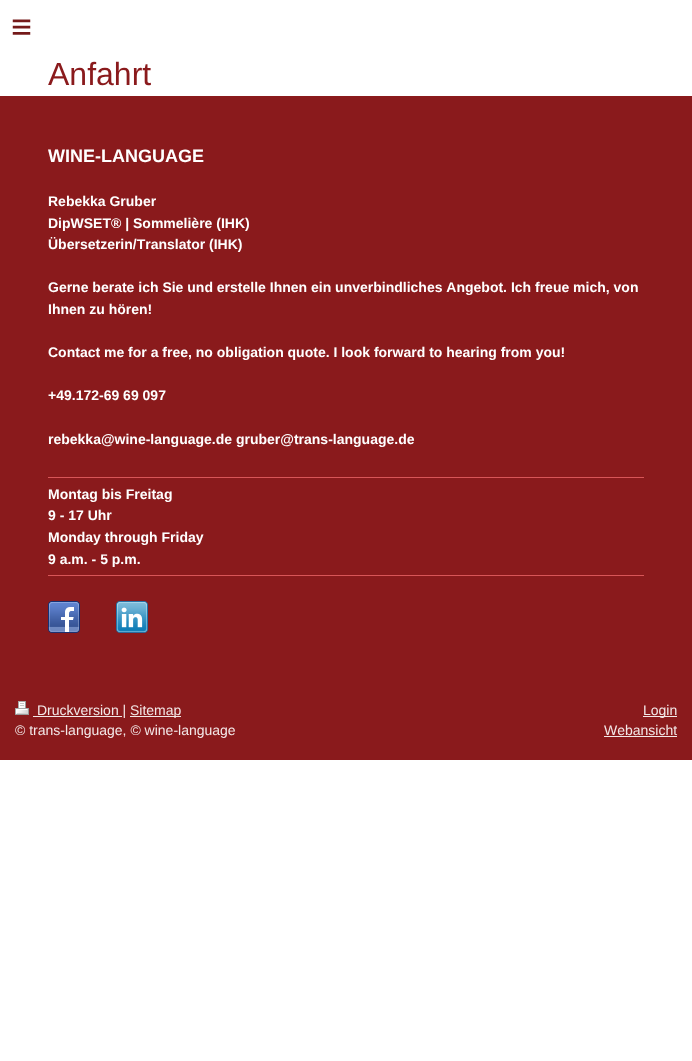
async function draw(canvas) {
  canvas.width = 692
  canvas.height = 1061
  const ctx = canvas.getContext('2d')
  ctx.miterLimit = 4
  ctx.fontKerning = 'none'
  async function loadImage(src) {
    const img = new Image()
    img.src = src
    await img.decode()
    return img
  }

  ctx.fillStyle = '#fff'
  ctx.fillRect(0, 0, 692, 1061)
  ctx.letterSpacing = '10px'
  ctx.font = '36px Liberation Sans'
  ctx.fillStyle = '#741919'
  ctx.fillText('≡', 11, 39)
  ctx.letterSpacing = '0px'
  ctx.font = '32px Liberation Sans'
  ctx.fillStyle = '#8a1a1c'
  ctx.fillText('Anfahrt', 48, 85)
  ctx.fillRect(0, 96, 692, 664)
  ctx.font = 'bold 18px Liberation Sans'
  ctx.fillStyle = '#fff'
  ctx.fillText('WINE-LANGUAGE', 48, 162)
  ctx.font = 'bold 14px Liberation Sans'
  ctx.fillText('Rebekka Gruber', 48, 206)
  ctx.fillText('DipWSET® | Sommelière (IHK)', 48, 228)
  ctx.fillText('Übersetzerin/Translator (IHK)', 48, 249)
  ctx.fillText('Gerne berate ich Sie und erstelle Ihnen ein unverbindliches Angebot. Ich freue mich, von', 48, 292)
  ctx.fillText('Ihnen zu hören!', 48, 314)
  ctx.fillText('Contact me for a free, no obligation quote. I look forward to hearing from you!', 48, 357)
  ctx.fillText('+49.172-69 69 097', 48, 400)
  ctx.fillText('rebekka@wine-language.de gruber@trans-language.de', 48, 444)
  ctx.fillStyle = '#d85658'
  ctx.fillRect(48, 477, 596, 1)
  ctx.fillStyle = '#fff'
  ctx.fillText('Montag bis Freitag', 48, 499)
  ctx.fillText('9 - 17 Uhr', 48, 520)
  ctx.fillText('Monday through Friday', 48, 542)
  ctx.fillText('9 a.m. - 5 p.m.', 48, 564)
  ctx.fillStyle = '#d85658'
  ctx.fillRect(48, 575, 596, 1)
  ctx.drawImage(await loadImage('image0.png'), 48, 601, 32, 32)
  ctx.drawImage(await loadImage('image1.png'), 116, 601, 32, 32)
  ctx.drawImage(await loadImage('image2.png'), 15, 701, 14, 14)
  ctx.fillStyle = '#f3e8e8'
  ctx.fillRect(33, 716, 89, 1)
  ctx.font = '14px Liberation Sans'
  ctx.fillText('Druckversion |', 37, 715)
  ctx.fillRect(130, 716, 51, 1)
  ctx.fillText('Sitemap', 130, 715)
  ctx.fillText('© trans-language, © wine-language', 15, 735)
  ctx.fillRect(643, 716, 34, 1)
  ctx.fillText('Login', 643, 715)
  ctx.fillText('Webansicht', 604, 735)
  ctx.fillRect(604, 736, 73, 1)
}

draw(document.querySelector('canvas'))
